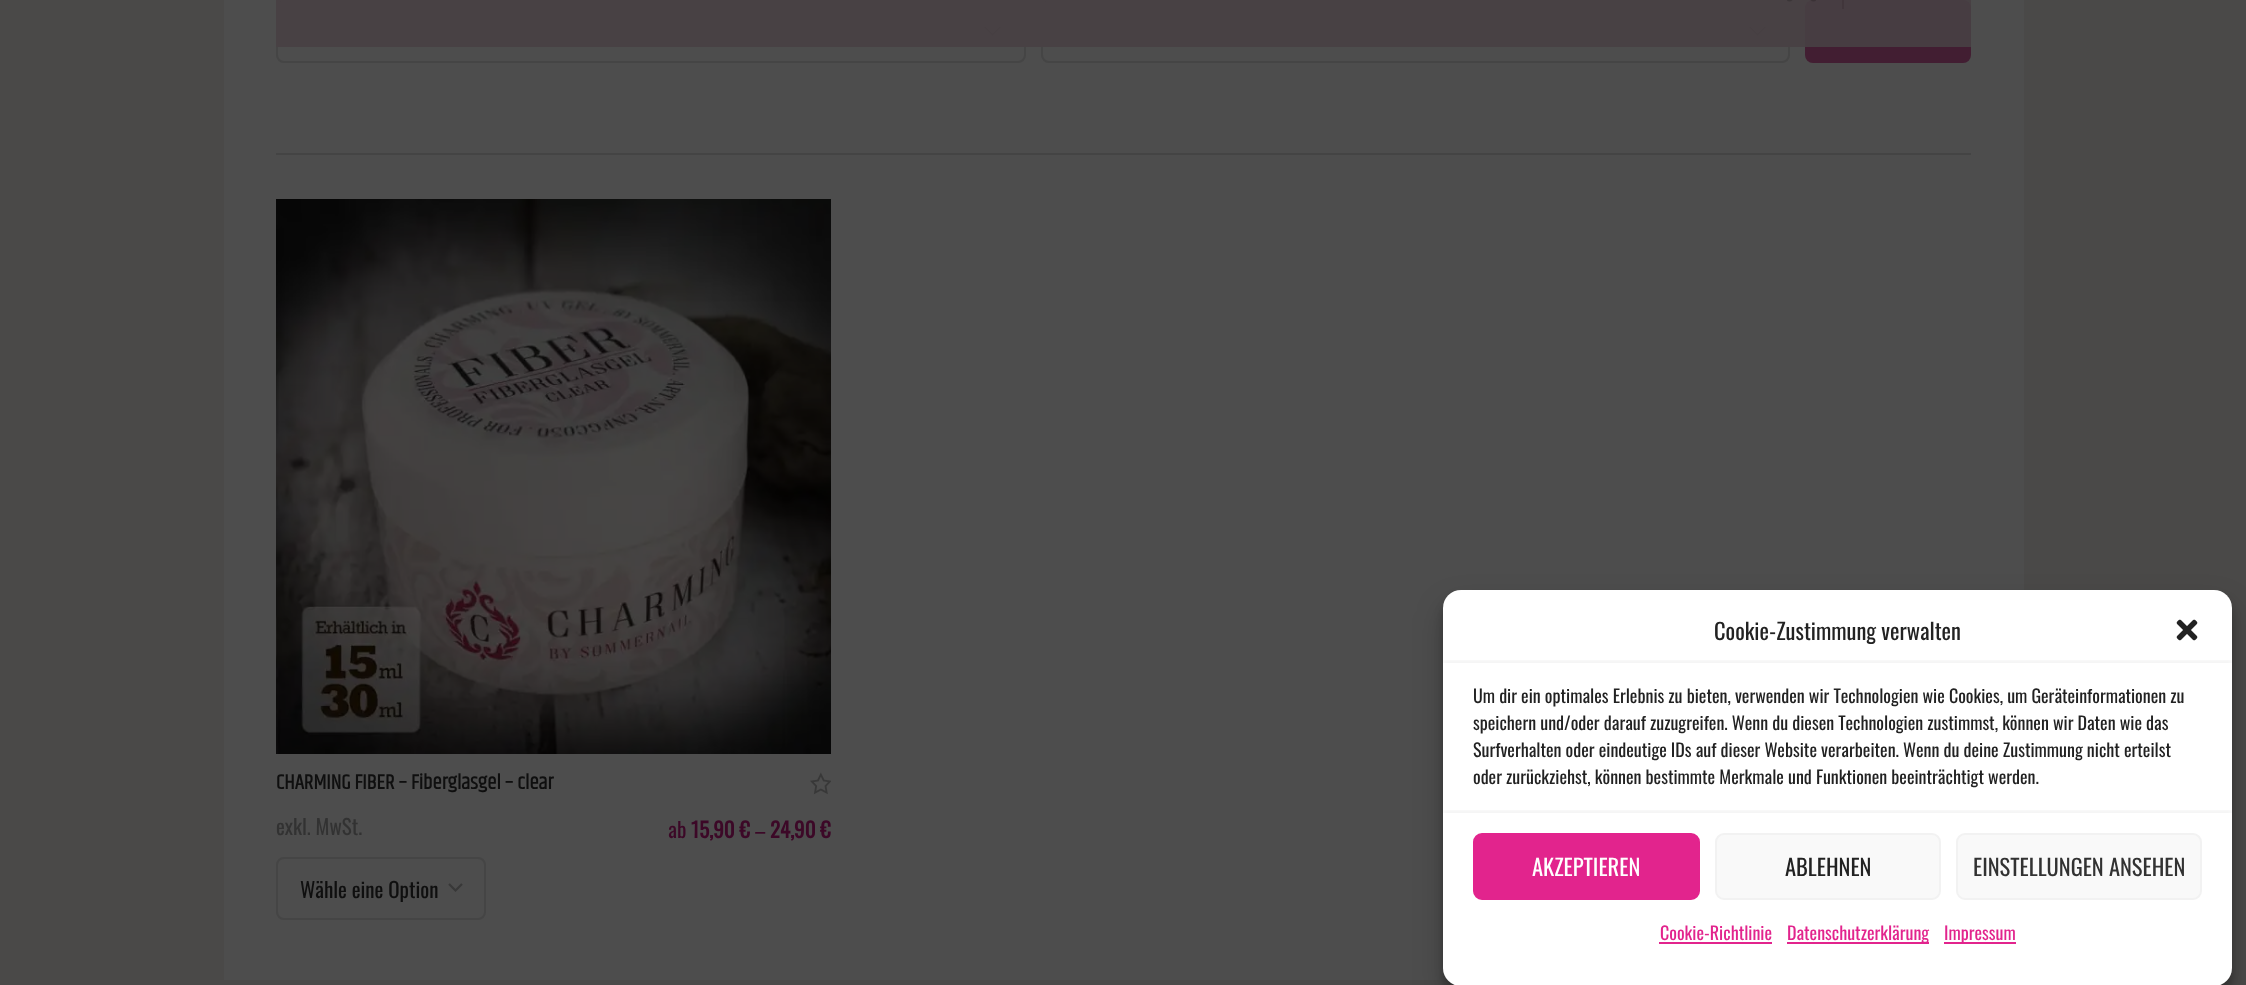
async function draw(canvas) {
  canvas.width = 2246
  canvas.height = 985
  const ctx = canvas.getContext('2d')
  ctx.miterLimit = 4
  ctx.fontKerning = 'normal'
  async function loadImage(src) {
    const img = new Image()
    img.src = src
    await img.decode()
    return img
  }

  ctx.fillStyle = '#4a4948'
  ctx.fillRect(0, 0, 2246, 985)
  ctx.fillStyle = '#4d4d4d'
  ctx.fillRect(224, 0, 1800, 980)
  ctx.beginPath()
  ctx.roundRect(277, 1, 748, 61, 7)
  ctx.strokeStyle = '#454545'
  ctx.lineWidth = 2
  ctx.stroke()
  ctx.fillStyle = '#4a4a4a'
  ctx.fillRect(861, 17, 104, 30)
  ctx.drawImage(await loadImage('image1.png'), 984, 26, 17, 10)
  ctx.beginPath()
  ctx.roundRect(1042, 1, 747, 61, 7)
  ctx.stroke()
  ctx.drawImage(await loadImage('image1.png'), 1749, 26, 17, 10)
  ctx.fillStyle = '#421e32'
  ctx.beginPath()
  ctx.roundRect(1805, 0, 166, 63, 8)
  ctx.fill()
  ctx.fillStyle = '#484044e6'
  ctx.fillRect(276, 0, 1695, 47)
  ctx.drawImage(await loadImage('image0.png'), 1787, 0, 29, 2)
  ctx.fillStyle = '#41363b'
  ctx.fillRect(1842, 0, 2, 9)
  ctx.fillStyle = '#444'
  ctx.fillRect(276, 153, 1695, 2)
  ctx.drawImage(await loadImage('image2.png'), 276, 199, 555, 555)
  ctx.font = 'bold 21px Khand'
  ctx.fillStyle = '#0f0f0f'
  ctx.fillText('CHARMING FIBER – Fiberglasgel – clear', 276, 789)
  ctx.drawImage(await loadImage('image3.png'), 810, 772, 21, 23)
  ctx.font = '21px Oswald'
  ctx.fillStyle = '#323232'
  ctx.fillText('exkl. MwSt.', 276, 835)
  ctx.fillStyle = '#3c0827'
  ctx.fillText('ab', 668, 838)
  ctx.font = 'bold 21px Oswald'
  ctx.fillText('15,90 €', 691, 838)
  ctx.font = '21px Oswald'
  ctx.fillText('–', 755, 838)
  ctx.font = 'bold 21px Oswald'
  ctx.fillText('24,90 €', 770, 838)
  ctx.beginPath()
  ctx.moveTo(449, 884)
  ctx.lineTo(455.5, 890.5)
  ctx.lineTo(462, 884)
  ctx.strokeStyle = '#383838'
  ctx.lineWidth = 2.2
  ctx.stroke()
  ctx.beginPath()
  ctx.roundRect(277, 858, 208, 61, 7)
  ctx.strokeStyle = '#454545'
  ctx.lineWidth = 2
  ctx.stroke()
  ctx.font = '21px Oswald'
  ctx.fillStyle = '#0f0f0f'
  ctx.fillText('Wähle eine Option', 300, 898)
  ctx.fillStyle = '#0000003b'
  ctx.filter = 'blur(4.5px)'
  ctx.beginPath()
  ctx.roundRect(1443, 599, 789, 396, 18)
  ctx.fill()
  ctx.filter = 'none'
  ctx.fillStyle = '#00000030'
  ctx.filter = 'blur(15px)'
  ctx.beginPath()
  ctx.roundRect(1443, 605, 789, 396, 18)
  ctx.fill()
  ctx.filter = 'none'
  ctx.fillStyle = '#fff'
  ctx.beginPath()
  ctx.roundRect(1443, 590, 789, 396, 18)
  ctx.fill()
  ctx.font = '22.5px Oswald'
  ctx.fillStyle = '#222'
  ctx.fillText('Cookie-Zustimmung verwalten', 1714, 640)
  ctx.drawImage(await loadImage('image4.png'), 2176, 619, 22, 22)
  ctx.save()
  ctx.beginPath()
  ctx.rect(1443, 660, 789, 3)
  ctx.clip()
  ctx.fillStyle = '#0000000d'
  ctx.filter = 'blur(2px)'
  ctx.beginPath()
  ctx.rect(1443, 660, 789, 5)
  ctx.fill()
  ctx.filter = 'none'
  ctx.restore()
  ctx.font = '18px Oswald'
  ctx.fillText('Um dir ein optimales Erlebnis zu bieten, verwenden wir Technologien wie Cookies, um Geräteinformationen zu', 1473, 703)
  ctx.fillText('speichern und/oder darauf zuzugreifen. Wenn du diesen Technologien zustimmst, können wir Daten wie das', 1473, 730)
  ctx.fillText('Surfverhalten oder eindeutige IDs auf dieser Website verarbeiten. Wenn du deine Zustimmung nicht erteilst', 1473, 757)
  ctx.fillText('oder zurückziehst, können bestimmte Merkmale und Funktionen beeinträchtigt werden.', 1473, 784)
  ctx.save()
  ctx.beginPath()
  ctx.rect(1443, 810, 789, 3)
  ctx.clip()
  ctx.fillStyle = '#0000000d'
  ctx.filter = 'blur(2px)'
  ctx.beginPath()
  ctx.rect(1443, 810, 789, 5)
  ctx.fill()
  ctx.filter = 'none'
  ctx.restore()
  ctx.fillStyle = '#e2248d'
  ctx.beginPath()
  ctx.roundRect(1474, 834, 225, 65, 8)
  ctx.fill()
  ctx.strokeStyle = '#e2248d'
  ctx.stroke()
  ctx.font = '22.5px Oswald'
  ctx.fillStyle = '#fff'
  ctx.fillText('AKZEPTIEREN', 1532, 876)
  ctx.fillStyle = '#f9f9f9'
  ctx.beginPath()
  ctx.roundRect(1716, 834, 224, 65, 8)
  ctx.fill()
  ctx.strokeStyle = '#f2f2f2'
  ctx.stroke()
  ctx.fillStyle = '#222'
  ctx.fillText('ABLEHNEN', 1785, 876)
  ctx.fillStyle = '#f9f9f9'
  ctx.beginPath()
  ctx.roundRect(1957, 834, 244, 65, 8)
  ctx.fill()
  ctx.stroke()
  ctx.fillStyle = '#323232'
  ctx.fillText('EINSTELLUNGEN ANSEHEN', 1973, 876)
  ctx.font = '18px Oswald'
  ctx.fillStyle = '#e2248d'
  ctx.fillText('Cookie-Richtlinie', 1660, 940)
  ctx.fillRect(1659, 942, 113, 2)
  ctx.fillRect(1787, 942, 142, 2)
  ctx.fillText('Datenschutzerklärung', 1787, 940)
  ctx.fillRect(1944, 942, 72, 2)
  ctx.fillText('Impressum', 1944, 940)
}

draw(document.querySelector('canvas'))
